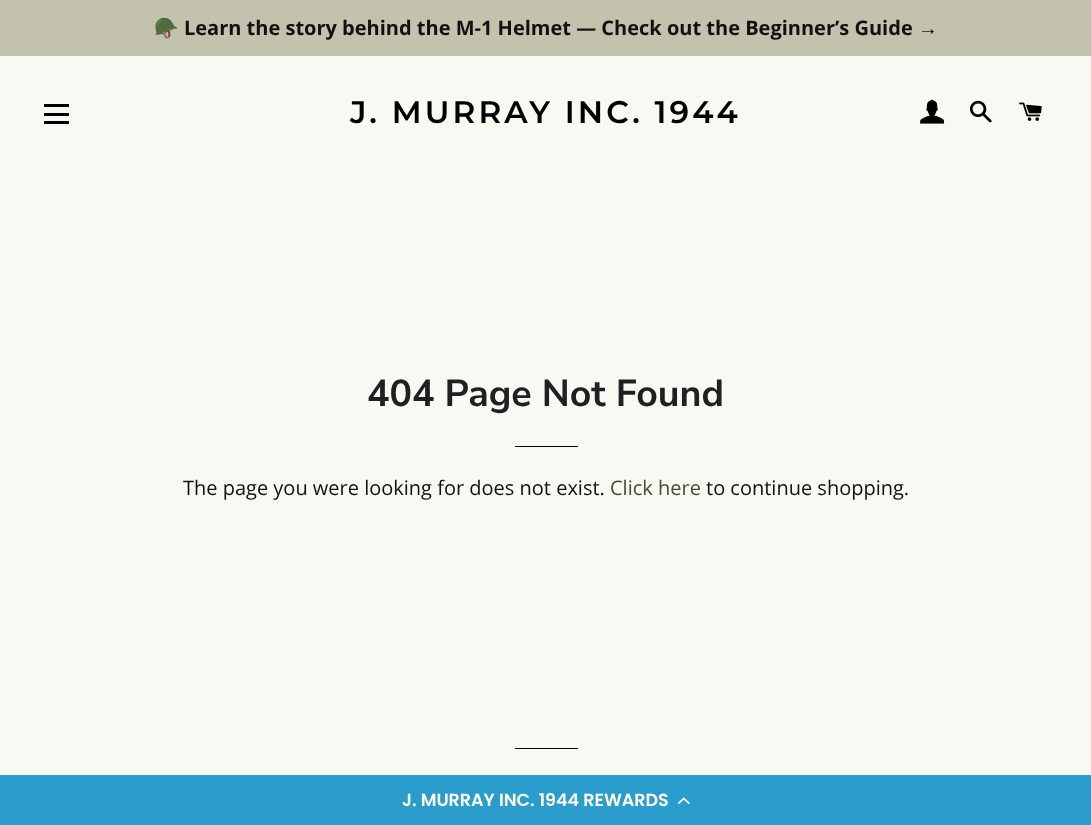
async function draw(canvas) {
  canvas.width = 1091
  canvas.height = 825
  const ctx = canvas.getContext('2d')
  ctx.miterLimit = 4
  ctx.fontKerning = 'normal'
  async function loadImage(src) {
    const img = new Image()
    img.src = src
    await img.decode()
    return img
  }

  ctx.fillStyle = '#f8f9f3'
  ctx.fillRect(0, 0, 1091, 825)
  ctx.fillStyle = '#c2c2ad'
  ctx.fillRect(0, 0, 1091, 56)
  ctx.font = 'bold 20px Noto Color Emoji'
  ctx.fillStyle = '#111'
  ctx.fillText('🪖', 154, 35)
  ctx.font = 'bold 20px Open Sans'
  ctx.fillText('Learn the story behind the M-1 Helmet — Check out the Beginner’s Guide', 184, 35)
  ctx.font = 'bold 20px Liberation Sans'
  ctx.fillText('→', 918, 35)
  ctx.fillStyle = '#000'
  ctx.fillRect(44, 104, 25, 3)
  ctx.fillRect(44, 113, 25, 3)
  ctx.fillRect(44, 121, 25, 3)
  ctx.letterSpacing = '3.1px'
  ctx.font = '600 31.25px Montserrat'
  ctx.fillText('J. MURRAY INC. 1944', 350, 123)
  ctx.drawImage(await loadImage('image0.png'), 920, 99, 25, 25)
  ctx.drawImage(await loadImage('image1.png'), 970, 100, 22, 23)
  ctx.drawImage(await loadImage('image2.png'), 1019, 102, 23, 19)
  ctx.letterSpacing = '0px'
  ctx.font = 'bold 37.5px Nunito Sans'
  ctx.fillStyle = '#1f2021'
  ctx.fillText('404 Page Not Found', 367, 406)
  ctx.fillStyle = '#040404'
  ctx.fillRect(515, 446, 63, 1)
  ctx.font = '20px Open Sans'
  ctx.fillStyle = '#111'
  ctx.fillText('The page you were looking for does not exist.', 183, 495)
  ctx.fillStyle = '#4d483e'
  ctx.fillText('Click here', 610, 495)
  ctx.fillStyle = '#111'
  ctx.fillText('to continue shopping.', 706, 495)
  ctx.fillStyle = '#040404'
  ctx.fillRect(515, 748, 63, 1)
  ctx.fillStyle = '#2a9dcc'
  ctx.fillRect(0, 775, 1091, 50)
  ctx.font = '600 17.5px Poppins'
  ctx.fillStyle = '#fff'
  ctx.fillText('J. MURRAY INC. 1944 REWARDS', 402, 806)
  ctx.drawImage(await loadImage('image3.png'), 678, 797, 12, 8)
}

draw(document.querySelector('canvas'))
